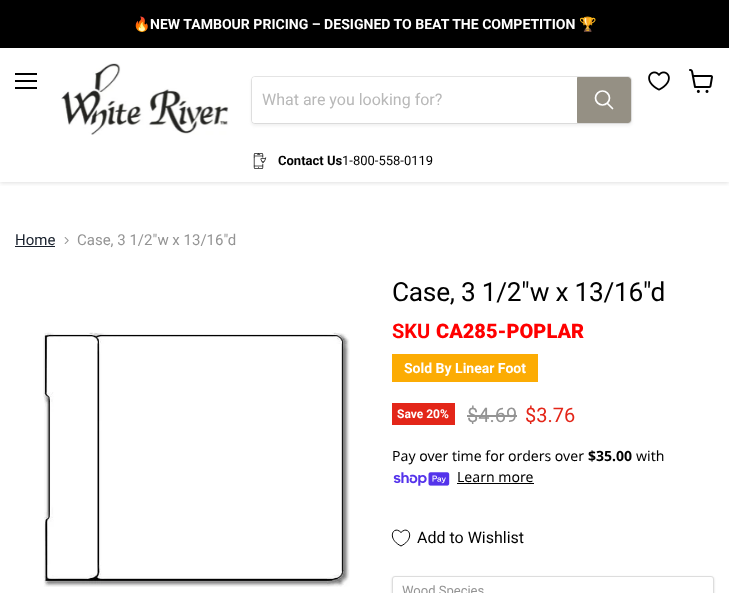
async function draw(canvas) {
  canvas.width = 729
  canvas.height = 593
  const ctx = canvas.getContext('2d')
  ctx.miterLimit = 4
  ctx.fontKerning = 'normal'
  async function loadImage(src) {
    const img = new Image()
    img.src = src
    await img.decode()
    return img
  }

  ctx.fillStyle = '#fff'
  ctx.fillRect(0, 0, 729, 593)
  ctx.save()
  ctx.beginPath()
  ctx.rect(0, 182, 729, 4)
  ctx.clip()
  ctx.fillStyle = '#80808040'
  ctx.filter = 'blur(2px)'
  ctx.beginPath()
  ctx.rect(0, 49, 729, 134)
  ctx.fill()
  ctx.filter = 'none'
  ctx.restore()
  ctx.fillStyle = '#000'
  ctx.fillRect(0, 0, 729, 48)
  ctx.font = 'bold 14.05px Noto Color Emoji'
  ctx.fillStyle = '#fff'
  ctx.fillText('🔥', 133, 29)
  ctx.font = 'bold 14.05px Roboto'
  ctx.fillText('NEW TAMBOUR PRICING – DESIGNED TO BEAT THE COMPETITION', 150, 29)
  ctx.font = 'bold 14.05px Noto Color Emoji'
  ctx.fillText('🏆', 579, 29)
  ctx.fillStyle = '#000'
  ctx.fillRect(15, 73, 22, 2)
  ctx.fillRect(15, 80, 22, 2)
  ctx.fillRect(15, 87, 22, 2)
  ctx.drawImage(await loadImage('image0.png'), 648, 71, 22, 20)
  ctx.drawImage(await loadImage('image1.png'), 689, 69, 24, 24)
  ctx.drawImage(await loadImage('image2.png'), 61, 63, 168, 72)
  ctx.fillStyle = '#8080801c'
  ctx.filter = 'blur(1.5px)'
  ctx.beginPath()
  ctx.roundRect(251, 78, 381, 48, 4)
  ctx.fill()
  ctx.filter = 'none'
  ctx.beginPath()
  ctx.roundRect(251.5, 76.5, 380, 47, 3.5)
  ctx.strokeStyle = '#80808033'
  ctx.stroke()
  ctx.fillStyle = '#fff'
  ctx.beginPath()
  ctx.roundRect(252, 77, 325, 46, [3, 0, 0, 3])
  ctx.fill()
  ctx.font = '16px Roboto'
  ctx.fillStyle = '#b8b8b8'
  ctx.fillText('What are you looking for?', 262, 105)
  ctx.fillStyle = '#959084'
  ctx.beginPath()
  ctx.roundRect(577.5, 77.5, 53, 45, [0, 2.5, 2.5, 0])
  ctx.fill()
  ctx.strokeStyle = '#959084'
  ctx.stroke()
  ctx.beginPath()
  ctx.moveTo(612.5, 108.5)
  ctx.lineTo(607.5, 103.5)
  ctx.strokeStyle = '#fff'
  ctx.lineWidth = 1.7
  ctx.lineCap = 'round'
  ctx.stroke()
  ctx.beginPath()
  ctx.arc(602.5, 98, 7, 0, 2 * Math.PI)
  ctx.stroke()
  ctx.drawImage(await loadImage('image3.png'), 253, 153, 14, 16)
  ctx.font = 'bold 13px Roboto'
  ctx.fillStyle = '#000'
  ctx.fillText('Contact Us', 278, 165)
  ctx.font = '13px Roboto'
  ctx.fillText('1-800-558-0119', 342, 165)
  ctx.font = '15px Roboto'
  ctx.fillStyle = '#171f2b'
  ctx.fillText('Home', 15, 245)
  ctx.fillRect(15, 246, 40, 1)
  ctx.drawImage(await loadImage('image4.png'), 64, 237, 5, 7)
  ctx.fillStyle = '#949494'
  ctx.fillText('Case, 3 1/2"w x 13/16"d', 77, 245)
  ctx.drawImage(await loadImage('image5.png'), 43, 332, 307, 255)
  ctx.letterSpacing = '-0.25px'
  ctx.font = '26.25px Roboto'
  ctx.fillStyle = '#000'
  ctx.fillText('Case, 3 1/2"w x 13/16"d', 392, 301)
  ctx.letterSpacing = '0px'
  ctx.font = 'bold 20px Roboto'
  ctx.fillStyle = '#f00'
  ctx.fillText('SKU', 392, 338)
  ctx.font = '900 20px Roboto'
  ctx.fillText('CA285-POPLAR', 436, 338)
  ctx.fillStyle = '#fcac04'
  ctx.fillRect(392, 354, 146, 28)
  ctx.font = 'bold 14px Roboto'
  ctx.fillStyle = '#fff'
  ctx.fillText('Sold By Linear Foot', 404, 373)
  ctx.fillStyle = '#e32619'
  ctx.fillRect(392, 403, 63, 22)
  ctx.font = 'bold 12px Roboto'
  ctx.fillStyle = '#fff'
  ctx.fillText('Save 20%', 397, 418)
  ctx.font = '20px Roboto'
  ctx.fillStyle = '#949494'
  ctx.fillText('$4.69', 467, 422)
  ctx.fillRect(467, 415, 50, 2)
  ctx.fillStyle = '#e32619'
  ctx.fillText('$3.76', 525, 422)
  ctx.font = '14.05px Noto Sans'
  ctx.fillStyle = '#000'
  ctx.fillText('Pay over time for orders over', 392, 461)
  ctx.font = 'bold 14.05px Noto Sans'
  ctx.fillText('$35.00', 588, 461)
  ctx.font = '14.05px Noto Sans'
  ctx.fillText('with', 636, 461)
  ctx.drawImage(await loadImage('image6.png'), 393, 472, 57, 14)
  ctx.fillText('Learn more', 457, 482)
  ctx.fillRect(457, 483, 77, 1)
  ctx.beginPath()
  ctx.moveTo(401, 546)
  ctx.bezierCurveTo(386, 538.5, 393.5, 524.5, 401, 532.5)
  ctx.bezierCurveTo(408.5, 524.5, 416, 538.5, 401, 546)
  ctx.closePath()
  ctx.strokeStyle = '#000'
  ctx.lineWidth = 1
  ctx.lineCap = 'butt'
  ctx.stroke()
  ctx.font = '16px Roboto'
  ctx.fillText('Add to Wishlist', 417, 543)
  ctx.fillStyle = '#00000026'
  ctx.filter = 'blur(1px)'
  ctx.beginPath()
  ctx.roundRect(392, 577, 322, 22, 3)
  ctx.fill()
  ctx.filter = 'none'
  ctx.fillStyle = '#fff'
  ctx.beginPath()
  ctx.roundRect(392.5, 576.5, 321, 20, 2.5)
  ctx.fill()
  ctx.strokeStyle = '#ddd'
  ctx.stroke()
  ctx.font = '13px Roboto'
  ctx.fillStyle = '#949494'
  ctx.fillText('Wood Species', 402, 595)
}

draw(document.querySelector('canvas'))
